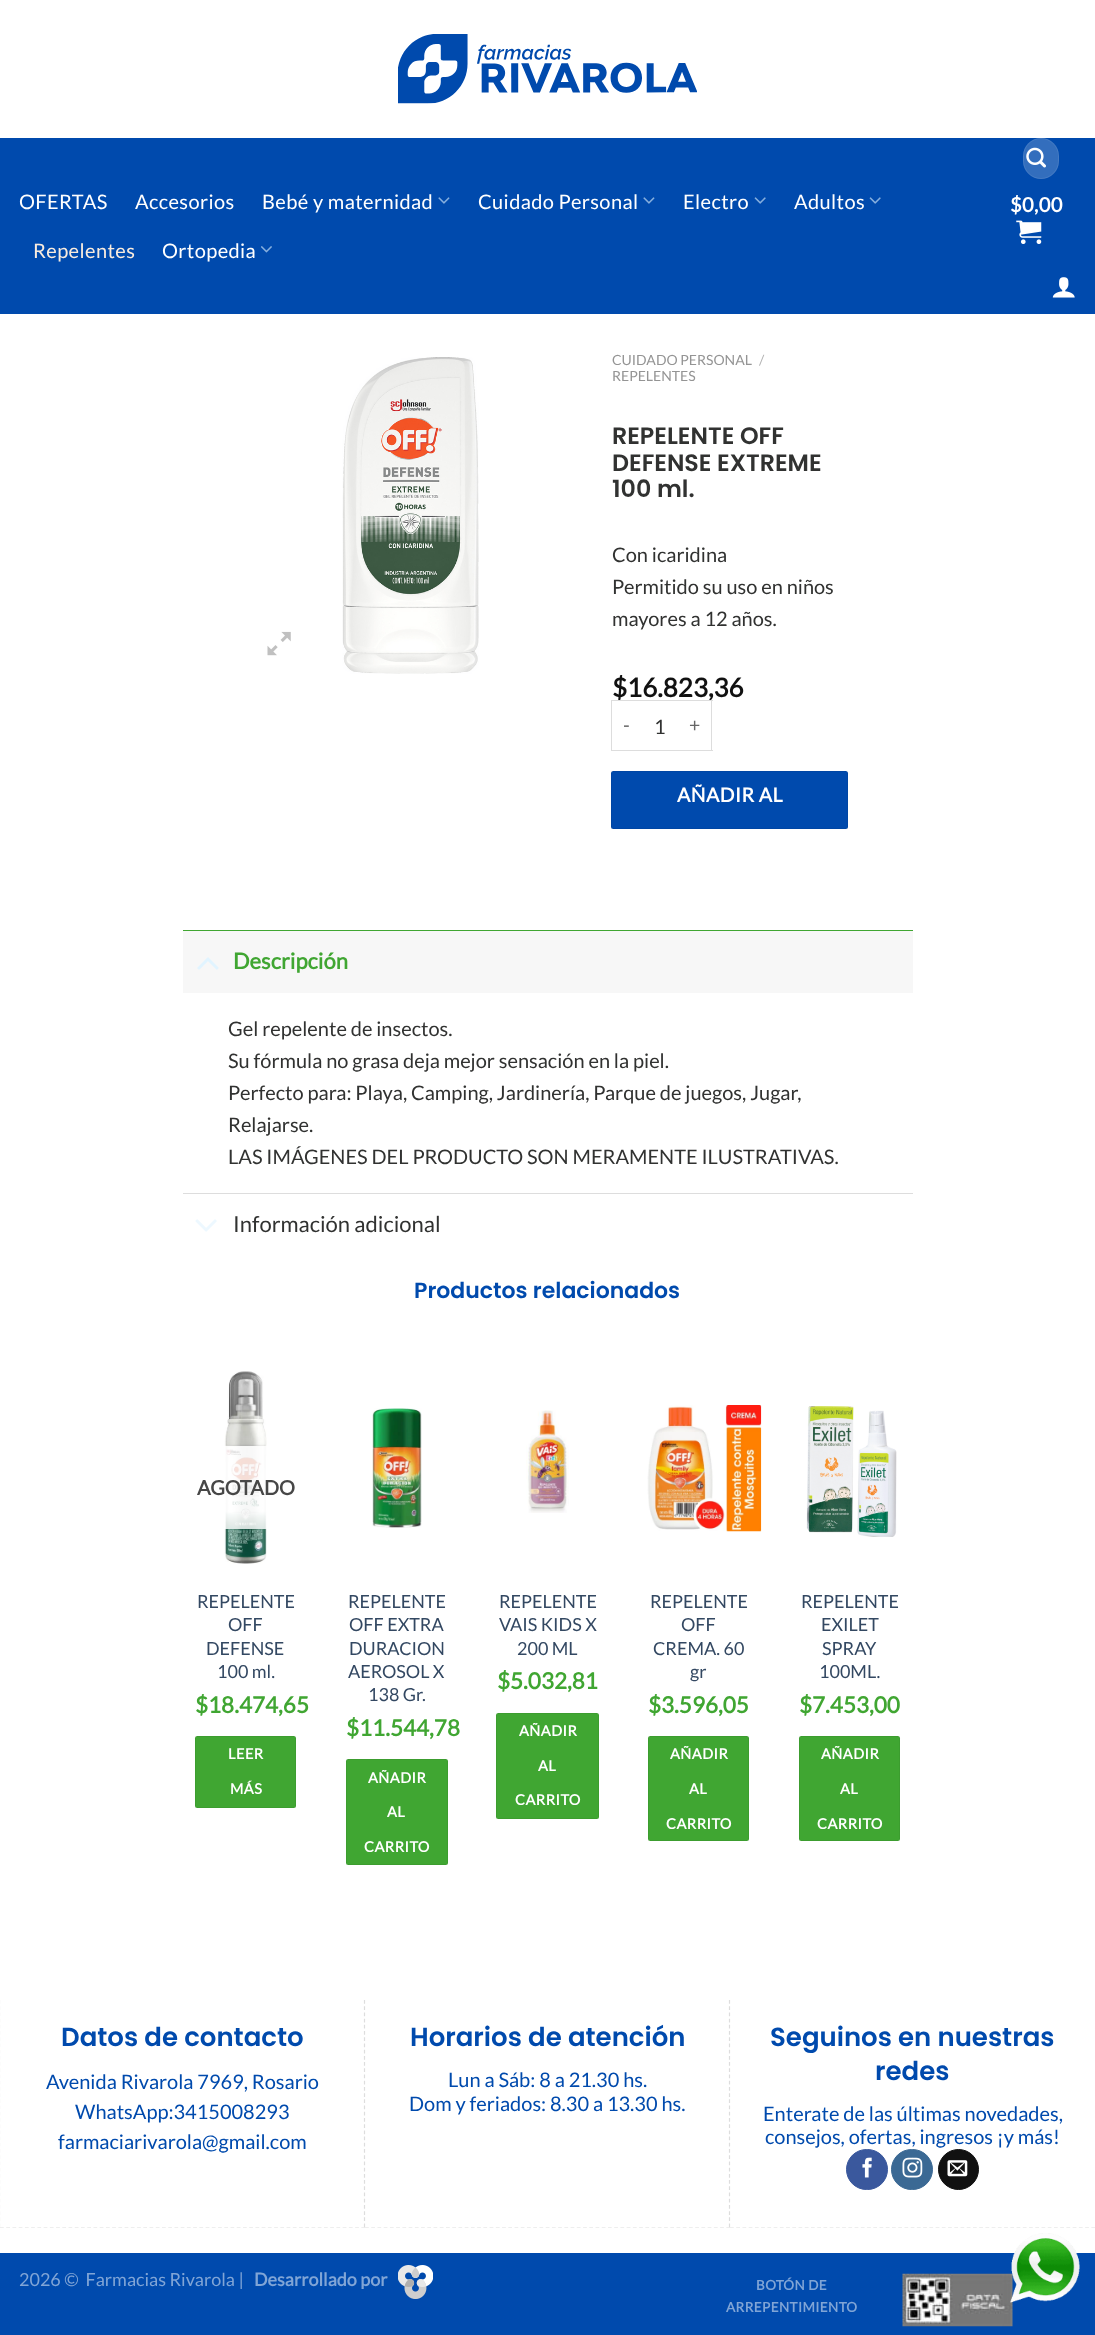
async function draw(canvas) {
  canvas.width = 1095
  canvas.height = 2335
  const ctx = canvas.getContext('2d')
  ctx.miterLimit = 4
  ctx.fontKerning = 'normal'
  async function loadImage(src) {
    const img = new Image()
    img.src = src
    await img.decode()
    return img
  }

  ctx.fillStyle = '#fff'
  ctx.fillRect(0, 0, 1095, 2335)
  ctx.drawImage(await loadImage('image0.png'), 398, 34, 299, 70)
  ctx.fillStyle = '#004aad'
  ctx.fillRect(0, 138, 1095, 176)
  ctx.letterSpacing = '0.4px'
  ctx.font = '20px Lato'
  ctx.fillStyle = '#fff'
  ctx.fillText('OFERTAS', 19, 209)
  ctx.fillText('Accesorios', 135, 209)
  ctx.fillText('Bebé y maternidad', 262, 209)
  ctx.drawImage(await loadImage('image1.png'), 438, 197, 12, 7)
  ctx.fillText('Cuidado Personal', 478, 209)
  ctx.drawImage(await loadImage('image1.png'), 643, 197, 12, 7)
  ctx.fillText('Electro', 683, 209)
  ctx.drawImage(await loadImage('image2.png'), 754, 197, 12, 7)
  ctx.fillText('Adultos', 794, 209)
  ctx.drawImage(await loadImage('image2.png'), 869, 197, 12, 7)
  ctx.fillStyle = '#f9ecde'
  ctx.fillText('Repelentes', 33, 258)
  ctx.fillStyle = '#fff'
  ctx.fillText('Ortopedia', 162, 258)
  ctx.drawImage(await loadImage('image3.png'), 261, 246, 11, 7)
  ctx.fillStyle = '#336ebd'
  ctx.beginPath()
  ctx.roundRect(1023, 138, 36, 41, 18)
  ctx.fill()
  ctx.beginPath()
  ctx.roundRect(1023.5, 138.5, 35, 40, 17.5)
  ctx.strokeStyle = '#ffffff17'
  ctx.stroke()
  ctx.drawImage(await loadImage('image4.png'), 1026, 147, 20, 21)
  ctx.font = 'bold 20px Lato'
  ctx.fillStyle = '#fff'
  ctx.fillText('$0,00', 1010, 212)
  ctx.drawImage(await loadImage('image5.png'), 1016, 220, 26, 24)
  ctx.drawImage(await loadImage('image6.png'), 1052, 277, 23, 21)
  ctx.drawImage(await loadImage('image7.png'), 267, 631, 24, 25)
  ctx.drawImage(await loadImage('image8.png'), 342, 357, 137, 317)
  ctx.letterSpacing = '0px'
  ctx.font = '14px Lato'
  ctx.fillStyle = '#949494'
  ctx.fillText('CUIDADO PERSONAL', 612, 365)
  ctx.fillStyle = '#b2b2b2'
  ctx.fillText('/', 759, 365)
  ctx.fillStyle = '#949494'
  ctx.fillText('REPELENTES', 612, 381)
  ctx.font = '600 23.75px Poppins'
  ctx.fillStyle = '#313231'
  ctx.fillText('REPELENTE OFF', 612, 444)
  ctx.fillText('DEFENSE EXTREME', 612, 471)
  ctx.fillText('100 ml.', 612, 497)
  ctx.font = '20px Lato'
  ctx.fillText('Con icaridina', 612, 562)
  ctx.fillText('Permitido su uso en niños', 612, 594)
  ctx.fillText('mayores a 12 años.', 612, 626)
  ctx.font = 'bold 26px Lato'
  ctx.fillStyle = '#111'
  ctx.fillText('$16.823,36', 612, 697)
  ctx.fillStyle = '#ddd'
  ctx.fillRect(611, 700, 102, 1)
  ctx.fillRect(611, 750, 69, 1)
  ctx.fillRect(611, 700, 1, 51)
  ctx.letterSpacing = '0.5px'
  ctx.font = '19.5px Lato'
  ctx.fillStyle = '#666'
  ctx.fillText('-', 623, 732)
  ctx.letterSpacing = '0px'
  ctx.font = '20px Lato'
  ctx.fillStyle = '#313231'
  ctx.fillText('1', 654, 734)
  ctx.fillStyle = '#ddd'
  ctx.fillRect(711, 700, 1, 51)
  ctx.fillRect(680, 750, 33, 1)
  ctx.letterSpacing = '0.5px'
  ctx.font = '19.5px Lato'
  ctx.fillStyle = '#666'
  ctx.fillText('+', 689, 732)
  ctx.fillStyle = '#004aad'
  ctx.beginPath()
  ctx.roundRect(611, 771, 237, 58, 2.5)
  ctx.fill()
  ctx.strokeStyle = '#0000000d'
  ctx.strokeRect(611.5, 771.5, 236, 57)
  ctx.font = 'bold 19.5px Lato'
  ctx.fillStyle = '#fff'
  ctx.fillText('AÑADIR AL', 677, 802)
  ctx.fillStyle = '#f7f7f7'
  ctx.fillRect(183, 931, 730, 62)
  ctx.fillStyle = '#40a632'
  ctx.fillRect(183, 930, 730, 1)
  ctx.drawImage(await loadImage('image9.png'), 197, 957, 22, 13)
  ctx.letterSpacing = '0px'
  ctx.font = 'bold 22px Lato'
  ctx.fillText('Descripción', 233, 969)
  ctx.font = '20px Lato'
  ctx.fillStyle = '#313231'
  ctx.fillText('Gel repelente de insectos.', 228, 1036)
  ctx.fillText('Su fórmula no grasa deja mejor sensación en la piel.', 228, 1068)
  ctx.fillText('Perfecto para: Playa, Camping, Jardinería, Parque de juegos, Jugar,', 228, 1100)
  ctx.fillText('Relajarse.', 228, 1132)
  ctx.fillText('LAS IMÁGENES DEL PRODUCTO SON MERAMENTE ILUSTRATIVAS.', 228, 1164)
  ctx.fillStyle = '#ddd'
  ctx.fillRect(183, 1193, 730, 1)
  ctx.drawImage(await loadImage('image10.png'), 195, 1219, 22, 13)
  ctx.font = '22px Lato'
  ctx.fillStyle = '#313231'
  ctx.fillText('Información adicional', 233, 1232)
  ctx.font = '600 22px Poppins'
  ctx.fillStyle = '#004aad'
  ctx.fillText('Productos relacionados', 414, 1298)
  ctx.drawImage(await loadImage('image11.png'), 224, 1371, 43, 193)
  ctx.fillStyle = '#ffffffcf'
  ctx.fillRect(224, 1446, 43, 83)
  ctx.font = 'bold 20px Lato'
  ctx.fillStyle = '#474747'
  ctx.fillText('AGOTADO', 197, 1495)
  ctx.font = '18px Lato'
  ctx.fillStyle = '#334862'
  ctx.fillText('REPELENTE', 197, 1608)
  ctx.fillText('OFF', 228, 1631)
  ctx.fillText('DEFENSE', 206, 1655)
  ctx.fillText('100 ml.', 217, 1678)
  ctx.font = 'bold 22.5px Lato'
  ctx.fillStyle = '#40a632'
  ctx.fillText('$18.474,65', 195, 1713)
  ctx.beginPath()
  ctx.roundRect(195, 1736, 101, 72, 2.5)
  ctx.fill()
  ctx.strokeRect(195.5, 1736.5, 100, 71)
  ctx.letterSpacing = '0.5px'
  ctx.font = 'bold 14.5px Lato'
  ctx.fillStyle = '#fff'
  ctx.fillText('LEER', 228, 1759)
  ctx.fillText('MÁS', 230, 1794)
  ctx.drawImage(await loadImage('image12.png'), 372, 1408, 50, 120)
  ctx.letterSpacing = '0px'
  ctx.font = '18px Lato'
  ctx.fillStyle = '#334862'
  ctx.fillText('REPELENTE', 348, 1608)
  ctx.fillText('OFF EXTRA', 349, 1631)
  ctx.fillText('DURACION', 349, 1655)
  ctx.fillText('AEROSOL X', 348, 1678)
  ctx.fillText('138 Gr.', 368, 1701)
  ctx.font = 'bold 22.5px Lato'
  ctx.fillStyle = '#40a632'
  ctx.fillText('$11.544,78', 346, 1736)
  ctx.beginPath()
  ctx.roundRect(346, 1759, 102, 106, 2.5)
  ctx.fill()
  ctx.strokeRect(346.5, 1759.5, 101, 105)
  ctx.letterSpacing = '0.5px'
  ctx.font = 'bold 14.5px Lato'
  ctx.fillStyle = '#fff'
  ctx.fillText('AÑADIR', 368, 1783)
  ctx.fillText('AL', 387, 1817)
  ctx.fillText('CARRITO', 364, 1852)
  ctx.drawImage(await loadImage('image13.png'), 526, 1410, 43, 103)
  ctx.letterSpacing = '0px'
  ctx.font = '18px Lato'
  ctx.fillStyle = '#334862'
  ctx.fillText('REPELENTE', 499, 1608)
  ctx.fillText('VAIS KIDS X', 499, 1631)
  ctx.fillText('200 ML', 517, 1655)
  ctx.font = 'bold 22.5px Lato'
  ctx.fillStyle = '#40a632'
  ctx.fillText('$5.032,81', 497, 1689)
  ctx.beginPath()
  ctx.roundRect(496, 1713, 103, 106, 2.5)
  ctx.fill()
  ctx.strokeRect(496.5, 1713.5, 102, 105)
  ctx.letterSpacing = '0.5px'
  ctx.font = 'bold 14.5px Lato'
  ctx.fillStyle = '#fff'
  ctx.fillText('AÑADIR', 519, 1736)
  ctx.fillText('AL', 538, 1771)
  ctx.fillText('CARRITO', 515, 1805)
  ctx.drawImage(await loadImage('image14.png'), 647, 1405, 115, 127)
  ctx.letterSpacing = '0px'
  ctx.font = '18px Lato'
  ctx.fillStyle = '#334862'
  ctx.fillText('REPELENTE', 650, 1608)
  ctx.fillText('OFF', 681, 1631)
  ctx.fillText('CREMA. 60', 653, 1655)
  ctx.fillText('gr', 690, 1678)
  ctx.font = 'bold 22.5px Lato'
  ctx.fillStyle = '#40a632'
  ctx.fillText('$3.596,05', 648, 1713)
  ctx.beginPath()
  ctx.roundRect(648, 1736, 101, 105, 2.5)
  ctx.fill()
  ctx.strokeRect(648.5, 1736.5, 100, 104)
  ctx.letterSpacing = '0.5px'
  ctx.font = 'bold 14.5px Lato'
  ctx.fillStyle = '#fff'
  ctx.fillText('AÑADIR', 670, 1759)
  ctx.fillText('AL', 689, 1794)
  ctx.fillText('CARRITO', 666, 1829)
  ctx.drawImage(await loadImage('image15.png'), 806, 1406, 91, 131)
  ctx.letterSpacing = '0px'
  ctx.font = '18px Lato'
  ctx.fillStyle = '#334862'
  ctx.fillText('REPELENTE', 801, 1608)
  ctx.fillText('EXILET', 821, 1631)
  ctx.fillText('SPRAY', 822, 1655)
  ctx.fillText('100ML.', 819, 1678)
  ctx.font = 'bold 22.5px Lato'
  ctx.fillStyle = '#40a632'
  ctx.fillText('$7.453,00', 799, 1713)
  ctx.beginPath()
  ctx.roundRect(799, 1736, 101, 105, 2.5)
  ctx.fill()
  ctx.strokeRect(799.5, 1736.5, 100, 104)
  ctx.letterSpacing = '0.5px'
  ctx.font = 'bold 14.5px Lato'
  ctx.fillStyle = '#fff'
  ctx.fillText('AÑADIR', 821, 1759)
  ctx.fillText('AL', 840, 1794)
  ctx.fillText('CARRITO', 817, 1829)
  ctx.beginPath()
  ctx.moveTo(-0.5, 2000)
  ctx.lineTo(-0.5, 2227.5)
  ctx.strokeStyle = '#ddd'
  ctx.lineWidth = 1.2
  ctx.setLineDash([3.75, 2.46])
  ctx.stroke()
  ctx.letterSpacing = '0px'
  ctx.font = '600 26px Poppins'
  ctx.fillStyle = '#004aad'
  ctx.fillText('Datos de contacto', 61, 2046)
  ctx.font = '20px Lato'
  ctx.fillText('Avenida Rivarola 7969, Rosario', 46, 2089)
  ctx.fillText('WhatsApp:3415008293', 75, 2119)
  ctx.fillText('farmaciarivarola@gmail.com', 58, 2149)
  ctx.save()
  ctx.beginPath()
  ctx.rect(0, 2000, 1095, 228)
  ctx.clip()
  ctx.beginPath()
  ctx.moveTo(0, 2228)
  ctx.lineTo(365, 2228)
  ctx.setLineDash([3.75, 2.48])
  ctx.stroke()
  ctx.restore()
  ctx.beginPath()
  ctx.moveTo(364.5, 2000)
  ctx.lineTo(364.5, 2227.5)
  ctx.stroke()
  ctx.font = '600 26px Poppins'
  ctx.fillText('Horarios de atención', 410, 2046)
  ctx.font = '20px Lato'
  ctx.fillText('Lun a Sáb: 8 a 21.30 hs.', 448, 2087)
  ctx.fillText('Dom y feriados: 8.30 a 13.30 hs.', 409, 2111)
  ctx.save()
  ctx.beginPath()
  ctx.rect(0, 2000, 1095, 228)
  ctx.clip()
  ctx.beginPath()
  ctx.moveTo(365, 2228)
  ctx.lineTo(730, 2228)
  ctx.setLineDash([3.75, 2.48])
  ctx.stroke()
  ctx.restore()
  ctx.beginPath()
  ctx.moveTo(729.5, 2000)
  ctx.lineTo(729.5, 2227.5)
  ctx.stroke()
  ctx.font = '600 26px Poppins'
  ctx.fillText('Seguinos en nuestras', 770, 2046)
  ctx.fillText('redes', 875, 2080)
  ctx.font = '20px Lato'
  ctx.fillText('Enterate de las últimas novedades,', 763, 2121)
  ctx.fillText('consejos, ofertas, ingresos ¡y más!', 765, 2144)
  ctx.fillStyle = '#3a589d'
  ctx.beginPath()
  ctx.roundRect(846.5, 2149.5, 41, 40, 20)
  ctx.fill()
  ctx.strokeStyle = '#3a589d'
  ctx.lineWidth = 1
  ctx.setLineDash([])
  ctx.stroke()
  ctx.drawImage(await loadImage('image16.png'), 862, 2157, 10, 21)
  ctx.fillStyle = '#3b6994'
  ctx.beginPath()
  ctx.roundRect(891.5, 2149.5, 41, 40, 20)
  ctx.fill()
  ctx.strokeStyle = '#3b6994'
  ctx.stroke()
  ctx.drawImage(await loadImage('image17.png'), 902, 2157, 21, 21)
  ctx.fillStyle = '#111'
  ctx.beginPath()
  ctx.arc(958.5, 2169.5, 20, 0, 2 * Math.PI)
  ctx.fill()
  ctx.strokeStyle = '#111'
  ctx.stroke()
  ctx.drawImage(await loadImage('image18.png'), 947, 2160, 21, 17)
  ctx.save()
  ctx.beginPath()
  ctx.rect(0, 2000, 1095, 228)
  ctx.clip()
  ctx.beginPath()
  ctx.moveTo(730, 2228)
  ctx.lineTo(1095, 2228)
  ctx.strokeStyle = '#ddd'
  ctx.lineWidth = 1.2
  ctx.setLineDash([3.75, 2.48])
  ctx.stroke()
  ctx.restore()
  ctx.fillStyle = '#004aad'
  ctx.fillRect(0, 2253, 1095, 82)
  ctx.font = '18px Lato'
  ctx.fillStyle = '#80a5d6'
  ctx.fillText('2026 ©  Farmacias Rivarola |', 19, 2286)
  ctx.font = 'bold 18px Lato'
  ctx.fillText('Desarrollado por', 254, 2286)
  ctx.drawImage(await loadImage('image19.png'), 398, 2265, 35, 34)
  ctx.letterSpacing = '0.4px'
  ctx.font = 'bold 13.5px Lato'
  ctx.fillText('BOTÓN DE', 756, 2290)
  ctx.fillText('ARREPENTIMIENTO', 726, 2312)
  ctx.drawImage(await loadImage('image20.png'), 902, 2273, 111, 54)
  ctx.drawImage(await loadImage('image21.png'), 1010, 2233, 70, 70)
}

draw(document.querySelector('canvas'))
